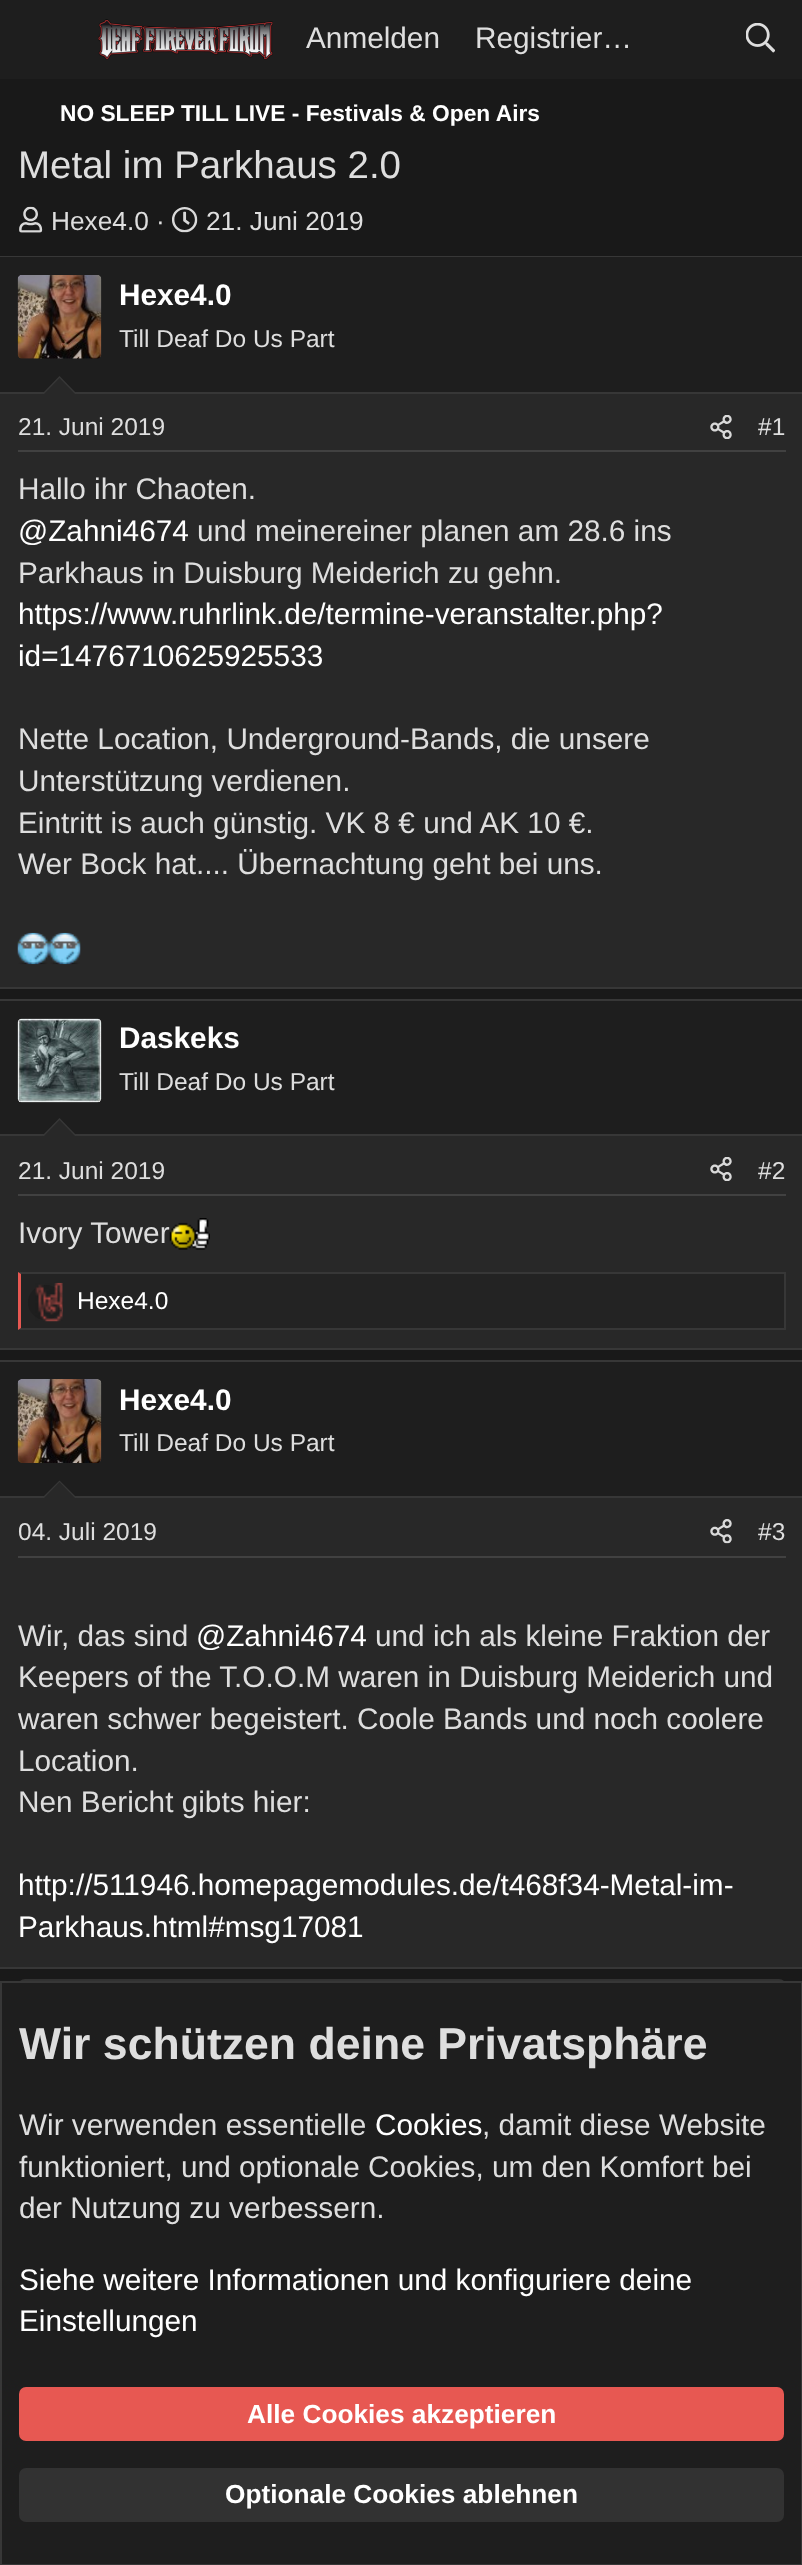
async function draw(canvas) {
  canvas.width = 802
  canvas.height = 2565
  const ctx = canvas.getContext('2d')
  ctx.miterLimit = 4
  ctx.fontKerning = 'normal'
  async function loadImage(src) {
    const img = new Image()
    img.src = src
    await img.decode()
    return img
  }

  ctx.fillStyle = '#191919'
  ctx.fillRect(0, 0, 802, 2565)
  ctx.fillStyle = '#1e1e1e'
  ctx.fillRect(0, 0, 802, 79)
  ctx.drawImage(await loadImage('image0.png'), 98, 19, 175, 41)
  ctx.font = '29.75px Liberation Sans'
  ctx.fillStyle = '#dedede'
  ctx.fillText('Anmelden', 306, 48)
  ctx.fillText('Registrier…', 475, 48)
  ctx.drawImage(await loadImage('image1.png'), 746, 23, 29, 30)
  ctx.font = 'bold 22.75px Liberation Sans'
  ctx.fillStyle = '#fff'
  ctx.fillText('NO SLEEP TILL LIVE - Festivals & Open Airs', 60, 121)
  ctx.font = '38.5px Liberation Sans'
  ctx.fillStyle = '#dedede'
  ctx.fillText('Metal im Parkhaus 2.0', 18, 178)
  ctx.drawImage(await loadImage('image2.png'), 19, 206, 24, 27)
  ctx.font = '26.25px Liberation Sans'
  ctx.fillText('Hexe4.0 ·', 51, 230)
  ctx.drawImage(await loadImage('image3.png'), 172, 207, 26, 26)
  ctx.fillText('21. Juni 2019', 206, 230)
  ctx.fillStyle = '#282828'
  ctx.fillRect(0, 394, 802, 593)
  ctx.fillStyle = '#373737'
  ctx.fillRect(0, 256, 802, 1)
  ctx.fillRect(0, 987, 802, 2)
  ctx.fillStyle = '#1e1e1e'
  ctx.fillRect(0, 257, 802, 135)
  ctx.fillStyle = '#373737'
  ctx.fillRect(0, 392, 802, 2)
  ctx.drawImage(await loadImage('image4.png'), 17, 275, 85, 84)
  ctx.font = 'bold 29.75px Liberation Sans'
  ctx.fillStyle = '#fff'
  ctx.fillText('Hexe4.0', 119, 305)
  ctx.font = '24.5px Liberation Sans'
  ctx.fillStyle = '#dedede'
  ctx.fillText('Till Deaf Do Us Part', 119, 347)
  ctx.fillStyle = '#373737'
  ctx.beginPath()
  ctx.moveTo(77, 394)
  ctx.lineTo(42, 394)
  ctx.lineTo(59.5, 376)
  ctx.closePath()
  ctx.fill()
  ctx.fillStyle = '#282828'
  ctx.beginPath()
  ctx.moveTo(75, 394)
  ctx.lineTo(44, 394)
  ctx.lineTo(59.5, 378)
  ctx.closePath()
  ctx.fill()
  ctx.fillStyle = '#414141'
  ctx.fillRect(18, 450, 768, 2)
  ctx.fillStyle = '#dedede'
  ctx.fillText('21. Juni 2019', 18, 435)
  ctx.drawImage(await loadImage('image5.png'), 710, 415, 22, 24)
  ctx.fillText('#1', 758, 435)
  ctx.font = '29.75px Liberation Sans'
  ctx.fillText('Hallo ihr Chaoten.', 18, 499)
  ctx.fillStyle = '#fff'
  ctx.fillText('@Zahni4674', 18, 541)
  ctx.fillStyle = '#dedede'
  ctx.fillText('und meinereiner planen am 28.6 ins', 197, 541)
  ctx.fillText('Parkhaus in Duisburg Meiderich zu gehn.', 18, 583)
  ctx.fillStyle = '#fff'
  ctx.fillText('https://www.ruhrlink.de/termine-veranstalter.php?', 18, 624)
  ctx.fillText('id=1476710625925533', 18, 666)
  ctx.fillStyle = '#dedede'
  ctx.fillText('Nette Location, Underground-Bands, die unsere', 18, 749)
  ctx.fillText('Unterstützung verdienen.', 18, 791)
  ctx.fillText('Eintritt is auch günstig. VK 8 € und AK 10 €.', 18, 833)
  ctx.fillText('Wer Bock hat.... Übernachtung geht bei uns.', 18, 874)
  ctx.drawImage(await loadImage('image6.png'), 17, 932, 32, 33)
  ctx.drawImage(await loadImage('image7.png'), 49, 932, 32, 33)
  ctx.fillStyle = '#282828'
  ctx.fillRect(0, 1136, 802, 212)
  ctx.fillStyle = '#373737'
  ctx.fillRect(0, 999, 802, 2)
  ctx.fillRect(0, 1348, 802, 2)
  ctx.fillStyle = '#1e1e1e'
  ctx.fillRect(0, 1001, 802, 133)
  ctx.fillStyle = '#373737'
  ctx.fillRect(0, 1134, 802, 2)
  ctx.drawImage(await loadImage('image8.png'), 17, 1018, 85, 85)
  ctx.font = 'bold 29.75px Liberation Sans'
  ctx.fillStyle = '#fff'
  ctx.fillText('Daskeks', 119, 1048)
  ctx.font = '24.5px Liberation Sans'
  ctx.fillStyle = '#dedede'
  ctx.fillText('Till Deaf Do Us Part', 119, 1090)
  ctx.fillStyle = '#373737'
  ctx.beginPath()
  ctx.moveTo(77, 1136)
  ctx.lineTo(42, 1136)
  ctx.lineTo(59.5, 1118)
  ctx.closePath()
  ctx.fill()
  ctx.fillStyle = '#282828'
  ctx.beginPath()
  ctx.moveTo(75, 1136)
  ctx.lineTo(44, 1136)
  ctx.lineTo(59.5, 1120)
  ctx.closePath()
  ctx.fill()
  ctx.fillStyle = '#414141'
  ctx.fillRect(18, 1194, 768, 2)
  ctx.fillStyle = '#dedede'
  ctx.fillText('21. Juni 2019', 18, 1179)
  ctx.drawImage(await loadImage('image5.png'), 710, 1157, 22, 24)
  ctx.fillText('#2', 758, 1179)
  ctx.font = '29.75px Liberation Sans'
  ctx.fillText('Ivory Tower', 18, 1243)
  ctx.drawImage(await loadImage('image9.png'), 169, 1218, 41, 32)
  ctx.fillStyle = '#232323'
  ctx.fillRect(21, 1274, 763, 54)
  ctx.fillStyle = '#373737'
  ctx.beginPath()
  ctx.moveTo(18, 1272)
  ctx.lineTo(786, 1272)
  ctx.lineTo(784, 1274)
  ctx.lineTo(21, 1274)
  ctx.closePath()
  ctx.fill()
  ctx.fillRect(784, 1272, 2, 58)
  ctx.beginPath()
  ctx.moveTo(786, 1330)
  ctx.lineTo(18, 1330)
  ctx.lineTo(21, 1328)
  ctx.lineTo(784, 1328)
  ctx.closePath()
  ctx.fill()
  ctx.fillStyle = '#e75852'
  ctx.beginPath()
  ctx.moveTo(18, 1330)
  ctx.lineTo(18, 1272)
  ctx.lineTo(21, 1274)
  ctx.lineTo(21, 1328)
  ctx.closePath()
  ctx.fill()
  ctx.fillStyle = '#1e1e1e'
  ctx.beginPath()
  ctx.arc(45.5, 1302.5, 17.5, 0, 2 * Math.PI)
  ctx.fill()
  ctx.drawImage(await loadImage('image10.png'), 35, 1282, 28, 40)
  ctx.font = '24.5px Liberation Sans'
  ctx.fillStyle = '#fff'
  ctx.fillText('Hexe4.0', 77, 1309)
  ctx.fillStyle = '#282828'
  ctx.fillRect(0, 1498, 802, 469)
  ctx.fillStyle = '#373737'
  ctx.fillRect(0, 1360, 802, 2)
  ctx.fillRect(0, 1967, 802, 2)
  ctx.fillStyle = '#1e1e1e'
  ctx.fillRect(0, 1362, 802, 134)
  ctx.fillStyle = '#373737'
  ctx.fillRect(0, 1496, 802, 2)
  ctx.drawImage(await loadImage('image11.png'), 17, 1379, 85, 84)
  ctx.font = 'bold 29.75px Liberation Sans'
  ctx.fillStyle = '#fff'
  ctx.fillText('Hexe4.0', 119, 1410)
  ctx.font = '24.5px Liberation Sans'
  ctx.fillStyle = '#dedede'
  ctx.fillText('Till Deaf Do Us Part', 119, 1451)
  ctx.fillStyle = '#373737'
  ctx.beginPath()
  ctx.moveTo(77, 1498)
  ctx.lineTo(42, 1498)
  ctx.lineTo(59.5, 1480.5)
  ctx.closePath()
  ctx.fill()
  ctx.fillStyle = '#282828'
  ctx.beginPath()
  ctx.moveTo(75, 1498)
  ctx.lineTo(44, 1498)
  ctx.lineTo(59.5, 1482)
  ctx.closePath()
  ctx.fill()
  ctx.fillStyle = '#414141'
  ctx.fillRect(18, 1556, 768, 2)
  ctx.fillStyle = '#dedede'
  ctx.fillText('04. Juli 2019', 18, 1540)
  ctx.drawImage(await loadImage('image12.png'), 710, 1519, 22, 25)
  ctx.fillText('#3', 758, 1540)
  ctx.font = '29.75px Liberation Sans'
  ctx.fillText('Wir, das sind', 18, 1646)
  ctx.fillStyle = '#fff'
  ctx.fillText('@Zahni4674', 196, 1646)
  ctx.fillStyle = '#dedede'
  ctx.fillText('und ich als kleine Fraktion der', 375, 1646)
  ctx.fillText('Keepers of the T.O.O.M waren in Duisburg Meiderich und', 18, 1687)
  ctx.fillText('waren schwer begeistert. Coole Bands und noch coolere', 18, 1729)
  ctx.fillText('Location.', 18, 1771)
  ctx.fillText('Nen Bericht gibts hier:', 18, 1812)
  ctx.fillStyle = '#fff'
  ctx.fillText('http://511946.homepagemodules.de/t468f34-Metal-im-', 18, 1895)
  ctx.fillText('Parkhaus.html#msg17081', 18, 1937)
  ctx.fillStyle = '#323232'
  ctx.beginPath()
  ctx.roundRect(18, 1979, 768, 91, 7)
  ctx.fill()
  ctx.fillStyle = '#1e1e1e'
  ctx.beginPath()
  ctx.rect(1, 1982, 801, 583)
  ctx.fill()
  ctx.strokeStyle = '#373737'
  ctx.lineWidth = 2
  ctx.stroke()
  ctx.font = 'bold 44.6px Liberation Sans'
  ctx.fillStyle = '#dedede'
  ctx.fillText('Wir schützen deine Privatsphäre', 19, 2059)
  ctx.font = '29.75px Liberation Sans'
  ctx.fillText('Wir verwenden essentielle', 19, 2135)
  ctx.fillStyle = '#fff'
  ctx.fillText('Cookies', 375, 2135)
  ctx.fillStyle = '#dedede'
  ctx.fillText(', damit diese Website', 482, 2135)
  ctx.fillText('funktioniert, und optionale Cookies, um den Komfort bei', 19, 2177)
  ctx.fillText('der Nutzung zu verbessern.', 19, 2218)
  ctx.fillStyle = '#fff'
  ctx.fillText('Siehe weitere Informationen und konfiguriere deine', 19, 2290)
  ctx.fillText('Einstellungen', 19, 2331)
  ctx.fillStyle = '#e75852'
  ctx.beginPath()
  ctx.roundRect(19, 2387, 765, 54, 7)
  ctx.fill()
  ctx.font = 'bold 26.25px Liberation Sans'
  ctx.fillStyle = '#fff'
  ctx.fillText('Alle Cookies akzeptieren', 247, 2423)
  ctx.fillStyle = '#323232'
  ctx.beginPath()
  ctx.roundRect(19, 2468, 765, 54, 7)
  ctx.fill()
  ctx.fillStyle = '#fff'
  ctx.fillText('Optionale Cookies ablehnen', 225, 2503)
}

draw(document.querySelector('canvas'))
